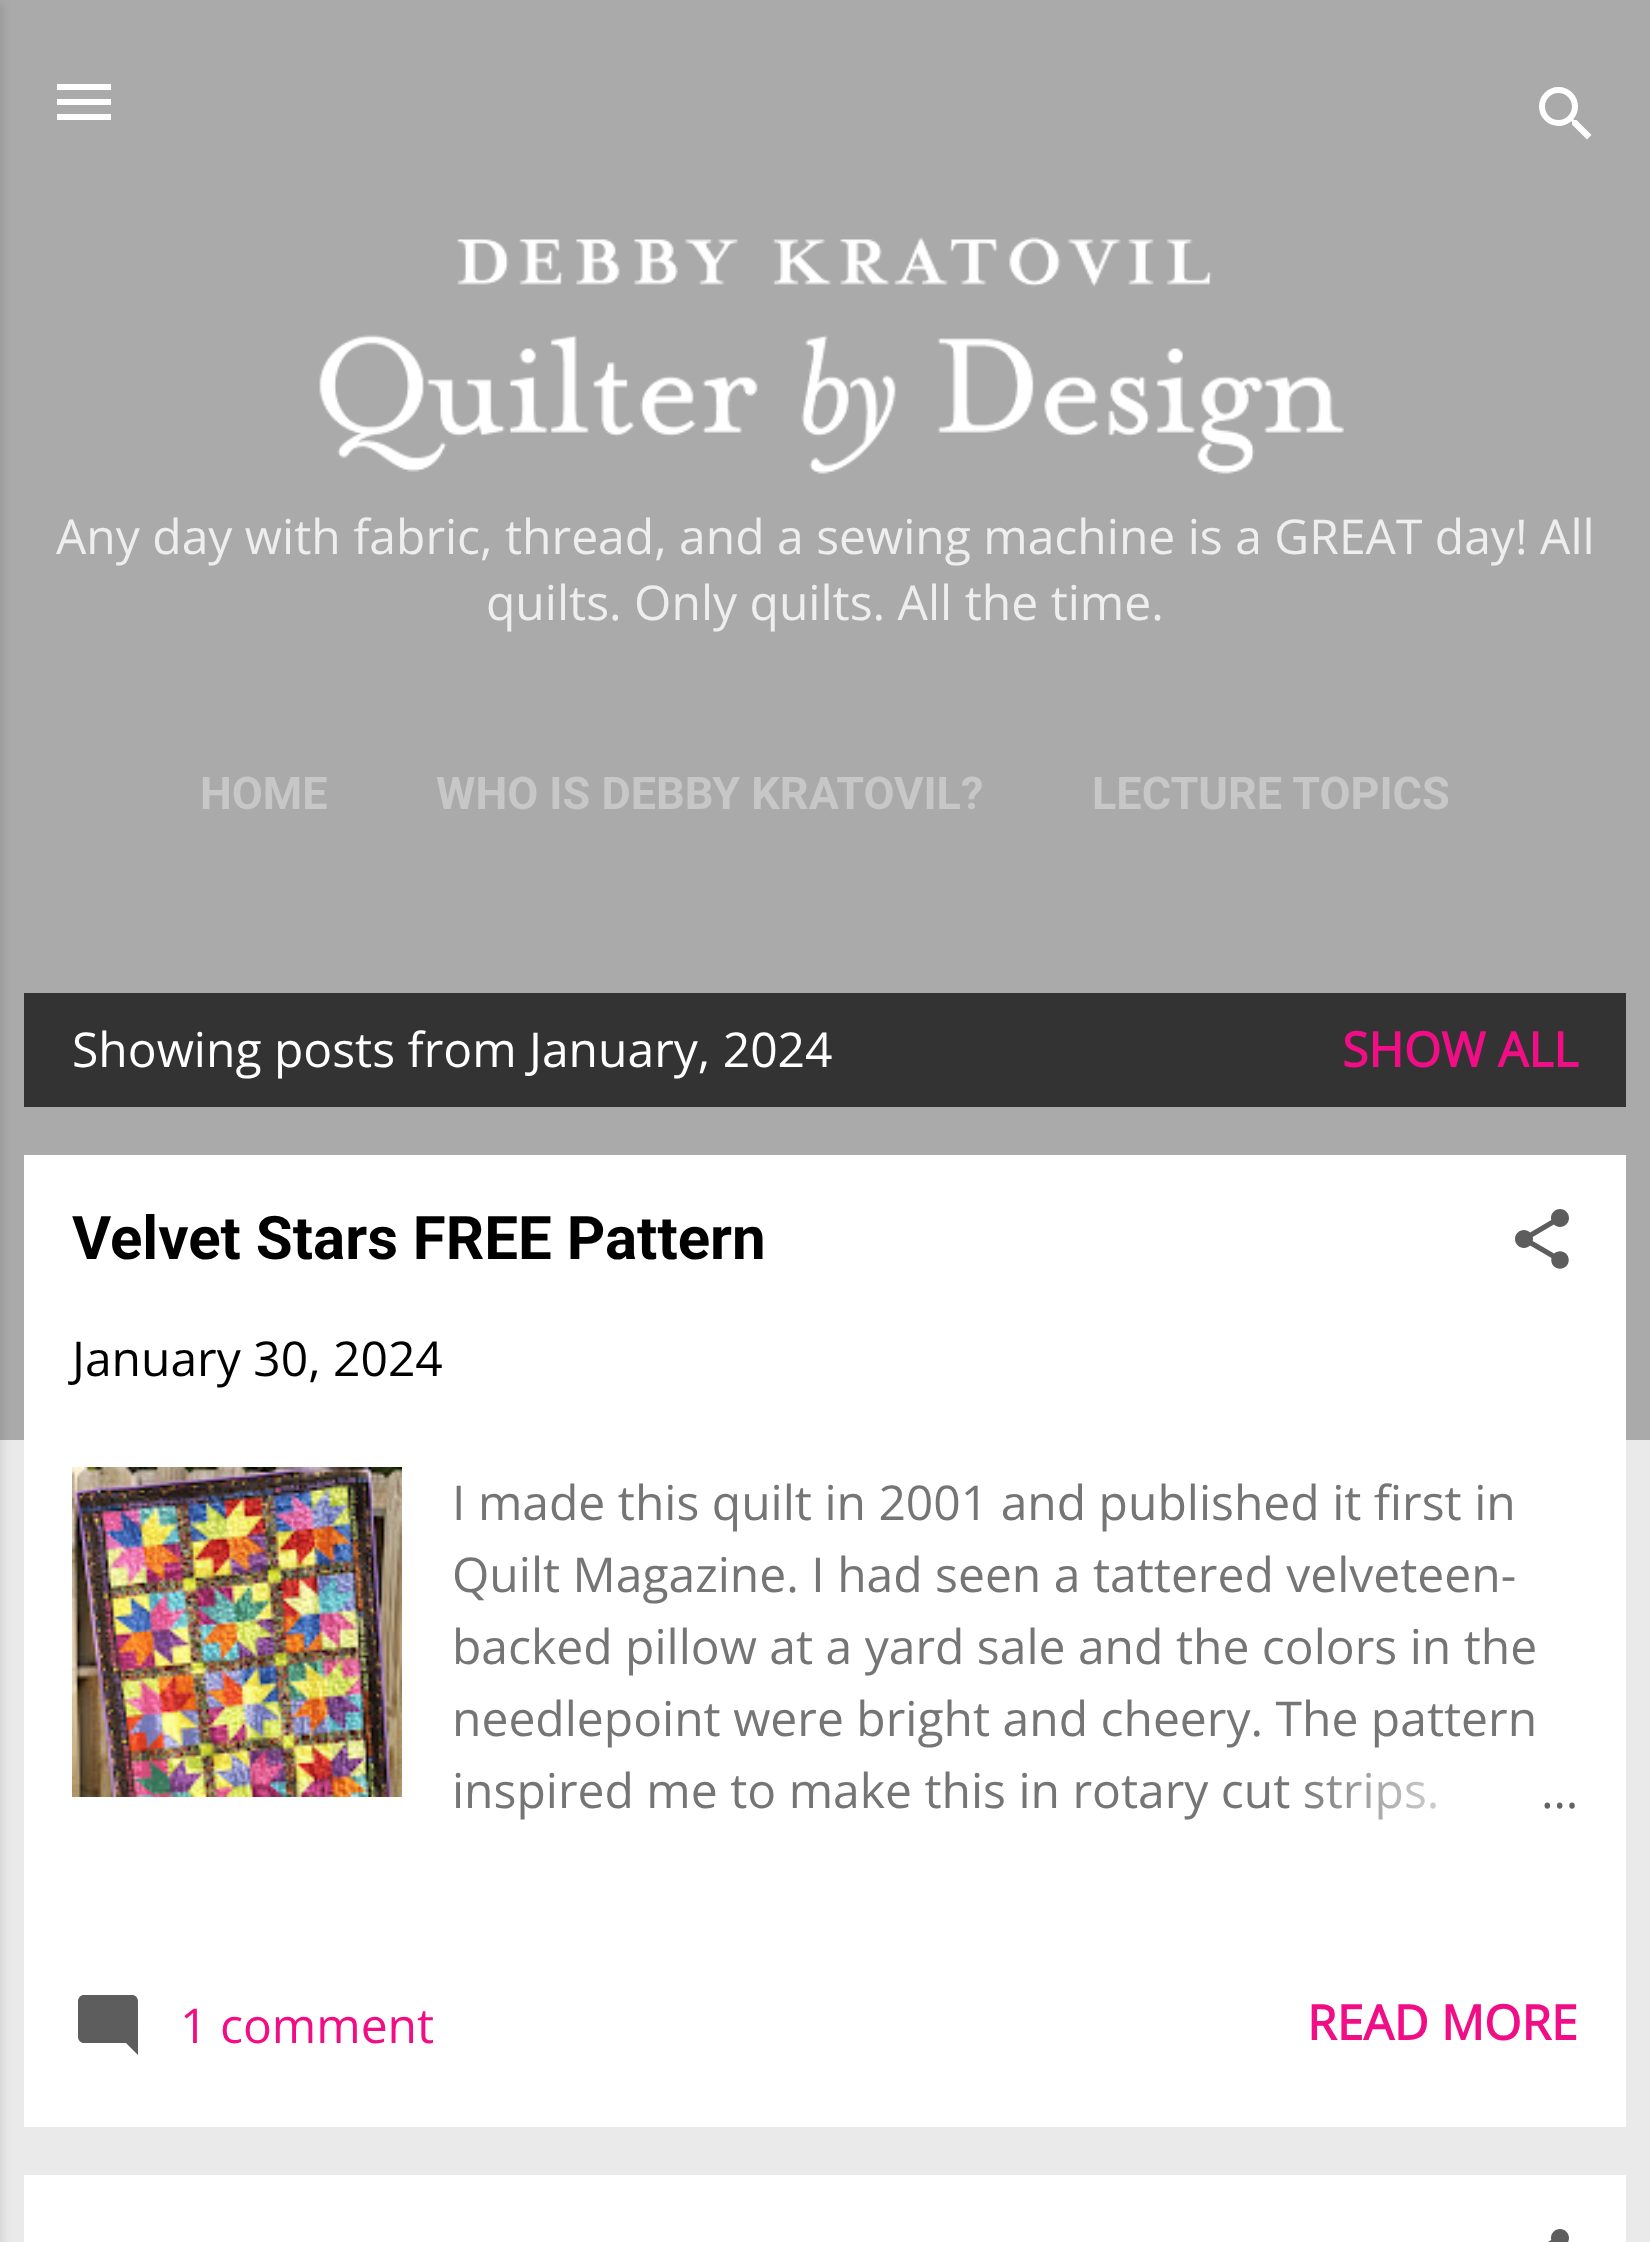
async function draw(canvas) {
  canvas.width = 1650
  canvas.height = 2242
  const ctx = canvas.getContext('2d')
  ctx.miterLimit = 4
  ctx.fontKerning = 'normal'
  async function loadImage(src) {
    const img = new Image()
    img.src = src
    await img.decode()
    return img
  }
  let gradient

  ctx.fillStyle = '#eaeaea'
  ctx.fillRect(0, 0, 1650, 2242)
  ctx.fillStyle = '#aaa'
  ctx.fillRect(0, 0, 1650, 1440)
  ctx.fillStyle = '#0000001a'
  ctx.filter = 'blur(4.5px)'
  ctx.beginPath()
  ctx.rect(-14, 3, 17, 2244)
  ctx.fill()
  ctx.filter = 'none'
  ctx.drawImage(await loadImage('image0.png'), 57, 84, 54, 36)
  ctx.drawImage(await loadImage('image1.png'), 1539, 87, 53, 53)
  ctx.drawImage(await loadImage('image2.png'), 319, 237, 1025, 237)
  ctx.font = '48px Open Sans'
  ctx.fillStyle = '#eee'
  ctx.fillText('Any day with fabric, thread, and a sewing machine is a GREAT day! All', 56, 554)
  ctx.fillText('quilts. Only quilts. All the time.', 486, 620)
  ctx.font = 'bold 45px Roboto'
  ctx.fillStyle = '#c7c7c7'
  ctx.fillText('HOME', 200, 809)
  ctx.fillText('WHO IS DEBBY KRATOVIL?', 436, 809)
  ctx.fillText('LECTURE TOPICS', 1092, 809)
  ctx.fillStyle = '#333'
  ctx.fillRect(24, 993, 1602, 114)
  ctx.font = '48px Open Sans'
  ctx.fillStyle = '#fff'
  ctx.fillText('Showing posts from January, 2024', 72, 1067)
  ctx.font = 'bold 48px Open Sans'
  ctx.fillStyle = '#f00d85'
  ctx.fillText('SHOW ALL', 1342, 1067)
  ctx.fillStyle = '#fff'
  ctx.fillRect(24, 1155, 1602, 972)
  ctx.font = 'bold 60px Roboto'
  ctx.fillStyle = '#000'
  ctx.fillText('Velvet Stars FREE Pattern', 72, 1259)
  ctx.drawImage(await loadImage('image3.png'), 1515, 1209, 54, 60)
  ctx.font = '48px Open Sans'
  ctx.fillText('January 30, 2024', 72, 1376)
  ctx.drawImage(await loadImage('image4.png'), 72, 1467, 330, 330)
  ctx.fillStyle = '#757575'
  ctx.fillText('I made this quilt in 2001 and published it first in', 452, 1520)
  ctx.fillText('Quilt Magazine. I had seen a tattered velveteen-', 452, 1592)
  ctx.fillText('backed pillow at a yard sale and the colors in the', 452, 1664)
  ctx.fillText('needlepoint were bright and cheery. The pattern', 452, 1736)
  ctx.fillText('inspired me to make this in rotary cut strips.', 452, 1808)
  gradient = ctx.createLinearGradient(1578, 1791, 1290, 1791)
  gradient.addColorStop(0, '#fff')
  gradient.addColorStop(0.2, '#fff')
  gradient.addColorStop(1, '#ffffff00')
  ctx.fillStyle = gradient
  ctx.fillRect(1305, 1772, 131, 48)
  ctx.fillStyle = '#646464'
  ctx.fillText('…', 1541, 1808)
  ctx.drawImage(await loadImage('image5.png'), 78, 1995, 60, 60)
  ctx.fillStyle = '#f00d85'
  ctx.fillText('1 comment', 180, 2043)
  ctx.font = 'bold 48px Open Sans'
  ctx.fillText('READ MORE', 1307, 2040)
  ctx.fillStyle = '#fff'
  ctx.fillRect(24, 2175, 1602, 67)
  ctx.drawImage(await loadImage('image6.png'), 1548, 2229, 21, 13)
}

draw(document.querySelector('canvas'))
